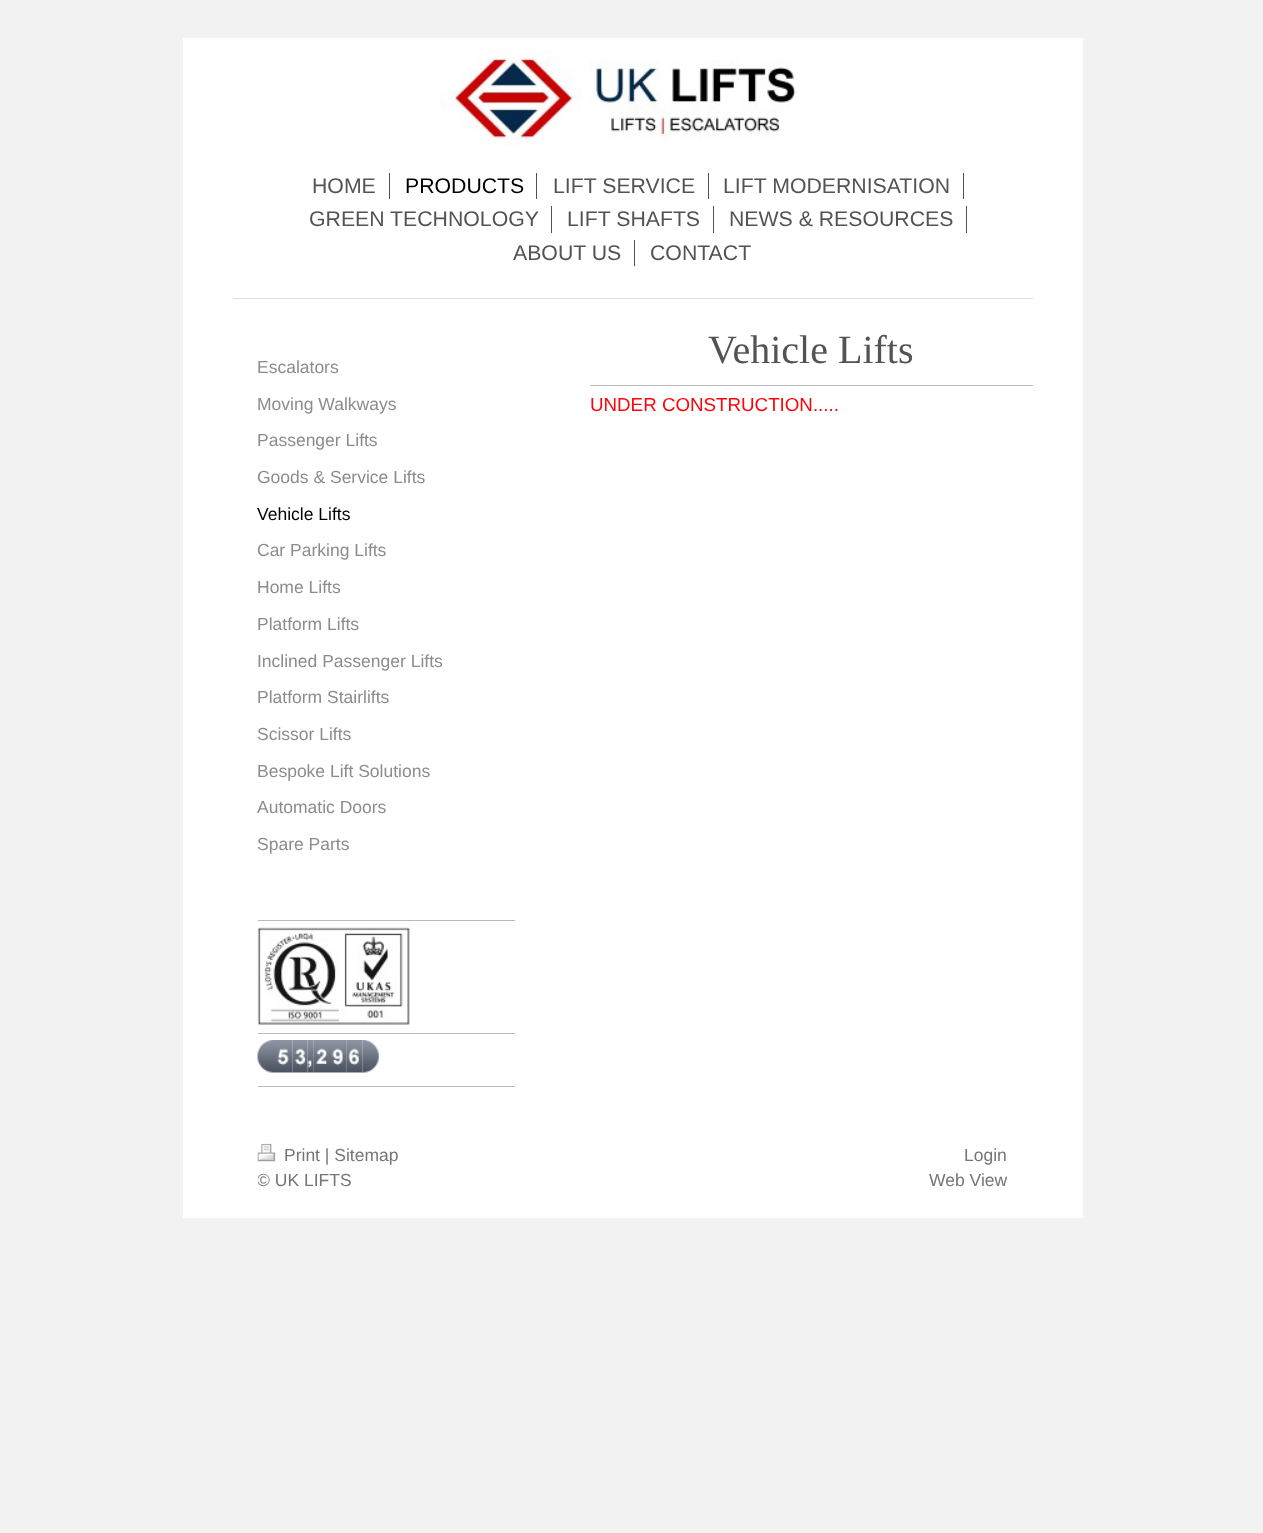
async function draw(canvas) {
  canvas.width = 1263
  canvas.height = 1533
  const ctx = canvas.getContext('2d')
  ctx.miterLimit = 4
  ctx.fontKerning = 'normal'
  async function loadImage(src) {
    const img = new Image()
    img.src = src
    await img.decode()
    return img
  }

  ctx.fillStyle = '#f2f2f2'
  ctx.fillRect(0, 0, 1263, 1533)
  ctx.fillStyle = '#fff'
  ctx.fillRect(183, 38, 900, 1180)
  ctx.drawImage(await loadImage('image0.png'), 440, 50, 357, 96)
  ctx.fillStyle = '#ddd'
  ctx.fillRect(233, 298, 800, 1)
  ctx.fillStyle = '#535353'
  ctx.fillRect(389, 173, 1, 26)
  ctx.font = '21.25px Liberation Sans'
  ctx.fillText('HOME', 312, 193)
  ctx.fillRect(536, 173, 1, 26)
  ctx.fillStyle = '#000'
  ctx.fillText('PRODUCTS', 405, 193)
  ctx.fillStyle = '#535353'
  ctx.fillRect(708, 173, 1, 26)
  ctx.fillText('LIFT SERVICE', 553, 193)
  ctx.fillRect(963, 173, 1, 26)
  ctx.fillText('LIFT MODERNISATION', 723, 193)
  ctx.fillRect(551, 206, 1, 27)
  ctx.fillText('GREEN TECHNOLOGY', 309, 226)
  ctx.fillRect(713, 206, 1, 27)
  ctx.fillText('LIFT SHAFTS', 567, 226)
  ctx.fillRect(966, 206, 1, 27)
  ctx.fillText('NEWS & RESOURCES', 729, 226)
  ctx.fillRect(634, 240, 1, 26)
  ctx.fillText('ABOUT US', 513, 260)
  ctx.fillText('CONTACT', 650, 260)
  ctx.font = '17.5px Liberation Sans'
  ctx.fillStyle = '#8c8c8c'
  ctx.fillText('Escalators', 257, 373)
  ctx.fillText('Moving Walkways', 257, 410)
  ctx.fillText('Passenger Lifts', 257, 446)
  ctx.fillText('Goods & Service Lifts', 257, 483)
  ctx.fillStyle = '#000'
  ctx.fillText('Vehicle Lifts', 257, 520)
  ctx.fillStyle = '#8c8c8c'
  ctx.fillText('Car Parking Lifts', 257, 556)
  ctx.fillText('Home Lifts', 257, 593)
  ctx.fillText('Platform Lifts', 257, 630)
  ctx.fillText('Inclined Passenger Lifts', 257, 667)
  ctx.fillText('Platform Stairlifts', 257, 703)
  ctx.fillText('Scissor Lifts', 257, 740)
  ctx.fillText('Bespoke Lift Solutions', 257, 777)
  ctx.fillText('Automatic Doors', 257, 813)
  ctx.fillText('Spare Parts', 257, 850)
  ctx.fillStyle = '#bababa'
  ctx.fillRect(258, 920, 257, 1)
  ctx.drawImage(await loadImage('image1.png'), 257, 927, 153, 98)
  ctx.fillRect(258, 1033, 257, 1)
  ctx.drawImage(await loadImage('image2.png'), 257, 1040, 18, 33)
  ctx.drawImage(await loadImage('image3.png'), 275, 1040, 18, 33)
  ctx.drawImage(await loadImage('image4.png'), 292, 1040, 16, 33)
  ctx.drawImage(await loadImage('image5.png'), 307, 1040, 7, 33)
  ctx.drawImage(await loadImage('image6.png'), 313, 1040, 17, 33)
  ctx.drawImage(await loadImage('image7.png'), 330, 1040, 17, 33)
  ctx.drawImage(await loadImage('image8.png'), 346, 1040, 17, 33)
  ctx.drawImage(await loadImage('image9.png'), 362, 1040, 17, 33)
  ctx.fillRect(258, 1086, 257, 1)
  ctx.font = '40px Liberation Serif'
  ctx.fillStyle = '#535353'
  ctx.fillText('Vehicle Lifts', 708, 363)
  ctx.fillStyle = '#bababa'
  ctx.fillRect(590, 385, 443, 1)
  ctx.font = '18.75px Liberation Sans'
  ctx.fillStyle = '#fd040a'
  ctx.fillText('UNDER CONSTRUCTION.....', 590, 411)
  ctx.drawImage(await loadImage('image10.png'), 257, 1143, 19, 19)
  ctx.font = '17.5px Liberation Sans'
  ctx.fillStyle = '#757575'
  ctx.fillText('Print | Sitemap', 284, 1161)
  ctx.save()
  ctx.beginPath()
  ctx.rect(258, 1144, 750, 49)
  ctx.clip()
  ctx.fillText('© UK LIFTS', 257, 1186)
  ctx.restore()
  ctx.fillText('Login', 964, 1161)
  ctx.fillText('Web View', 929, 1186)
}

draw(document.querySelector('canvas'))
